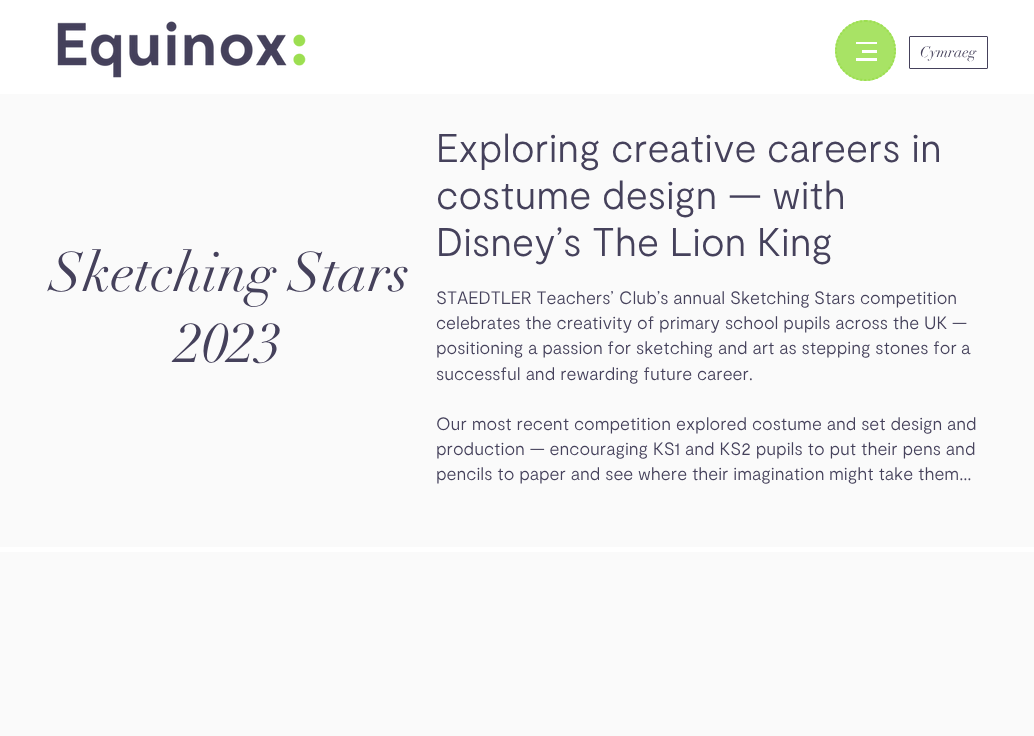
async function draw(canvas) {
  canvas.width = 1034
  canvas.height = 736
  const ctx = canvas.getContext('2d')
  ctx.miterLimit = 4
  ctx.fontKerning = 'none'
  async function loadImage(src) {
    const img = new Image()
    img.src = src
    await img.decode()
    return img
  }

  ctx.fillStyle = '#fff'
  ctx.fillRect(0, 0, 1034, 736)
  ctx.drawImage(await loadImage('image0.png'), 57, 21, 249, 57)
  ctx.fillStyle = '#a8e365'
  ctx.beginPath()
  ctx.arc(865.5, 50.5, 30.5, 0, 2 * Math.PI)
  ctx.fill()
  ctx.beginPath()
  ctx.moveTo(865.5, 21)
  ctx.bezierCurveTo(882, 21, 895, 34, 895, 50.5)
  ctx.bezierCurveTo(895, 67, 882, 80, 865.5, 80)
  ctx.bezierCurveTo(849, 80, 836, 67, 836, 50.5)
  ctx.bezierCurveTo(836, 34, 849, 21, 865.5, 21)
  ctx.closePath()
  ctx.strokeStyle = '#9cdf50'
  ctx.lineWidth = 2
  ctx.setLineDash([2, 2])
  ctx.stroke()
  ctx.fillStyle = '#fff'
  ctx.fillRect(856, 42, 21, 2)
  ctx.fillRect(862, 50, 15, 3)
  ctx.fillRect(856, 58, 21, 3)
  ctx.beginPath()
  ctx.roundRect(909.5, 36.5, 78, 32, 0.5)
  ctx.strokeStyle = '#45415b'
  ctx.lineWidth = 1
  ctx.setLineDash([])
  ctx.stroke()
  ctx.font = '15px didot'
  ctx.fillStyle = '#45415b'
  ctx.fillText('Cymraeg', 920, 57)
  ctx.fillStyle = '#fafafa'
  ctx.fillRect(0, 94, 1034, 453)
  ctx.font = '300 40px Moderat'
  ctx.fillStyle = '#45415b'
  ctx.fillText('Exploring creative', 436, 162)
  ctx.fillText('careers in', 767, 162)
  ctx.fillText('costume design — with', 436, 209)
  ctx.fillText('Disney’s The Lion King', 436, 256)
  ctx.font = '55px didot'
  ctx.fillText('Sketching Stars', 50, 291)
  ctx.fillText('2023', 176, 362)
  ctx.font = '300 18px Moderat'
  ctx.fillText('STAEDTLER Teachers’', 436, 304)
  ctx.fillText('Club’s annual Sketching', 619, 304)
  ctx.fillText('Stars competition', 814, 304)
  ctx.fillText('celebrates the creativity', 436, 329)
  ctx.fillText('of primary school pupils across the UK —', 637, 329)
  ctx.fillText('positioning a passion for sketching', 436, 354)
  ctx.fillText('and art as stepping stones for', 718, 354)
  ctx.fillText('a', 961, 354)
  ctx.fillText('successful and rewarding future', 436, 380)
  ctx.fillText('career.', 697, 380)
  ctx.fillText('Our most recent competition', 436, 430)
  ctx.fillText('explored costume and set design', 676, 430)
  ctx.fillText('and', 947, 430)
  ctx.fillText('production — encouraging KS1', 436, 455)
  ctx.fillText('and KS2 pupils to put their pens and', 685, 455)
  ctx.fillText('pencils to paper and see where their imagination', 436, 480)
  ctx.fillText('might take them…', 829, 480)
  ctx.fillStyle = '#fafafa'
  ctx.fillRect(0, 552, 1034, 184)
}

draw(document.querySelector('canvas'))
